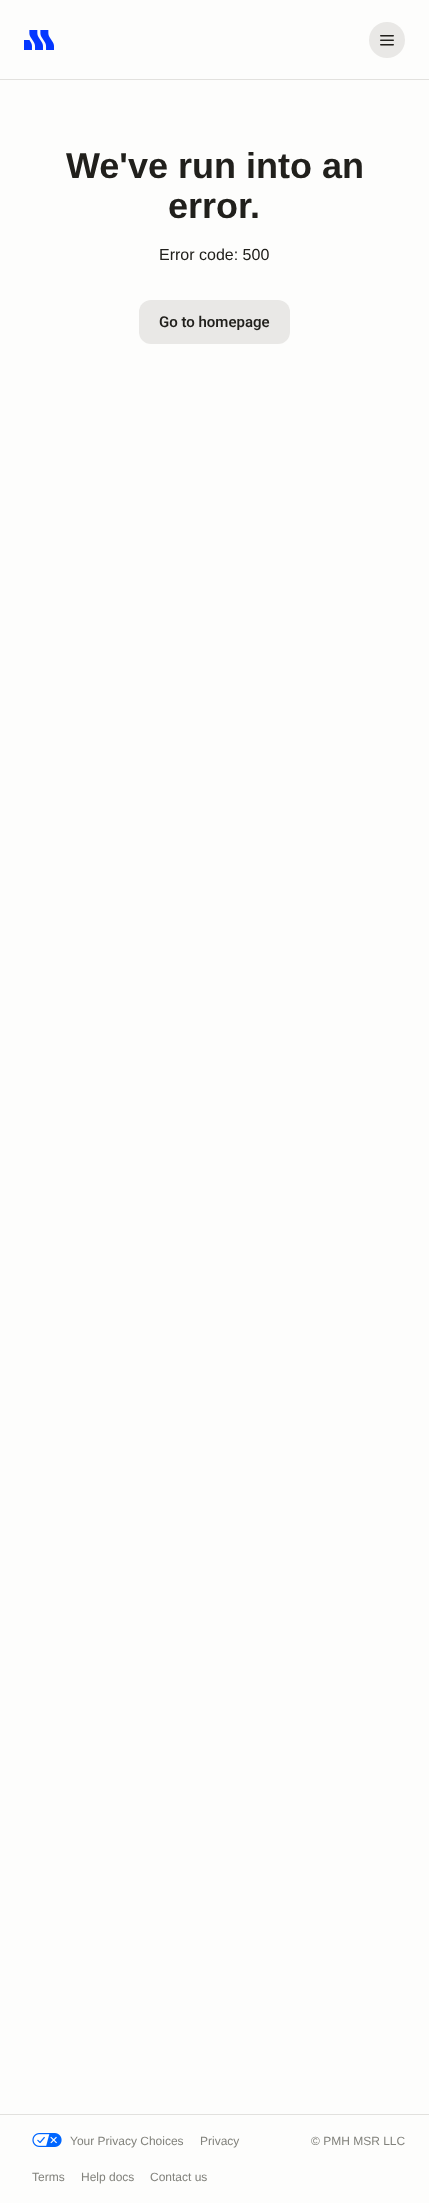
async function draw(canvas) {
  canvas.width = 429
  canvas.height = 2203
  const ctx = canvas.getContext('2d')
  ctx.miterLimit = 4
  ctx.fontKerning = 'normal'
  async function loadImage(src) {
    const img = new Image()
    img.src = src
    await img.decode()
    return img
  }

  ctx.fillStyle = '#fdfdfc'
  ctx.fillRect(0, 0, 429, 2203)
  ctx.fillStyle = '#e2e1de'
  ctx.fillRect(0, 79, 429, 1)
  ctx.drawImage(await loadImage('image0.png'), 24, 30, 30, 20)
  ctx.fillStyle = '#e9e8e6'
  ctx.beginPath()
  ctx.arc(387, 40, 18, 0, 2 * Math.PI)
  ctx.fill()
  ctx.drawImage(await loadImage('image1.png'), 380, 35, 14, 11)
  ctx.font = 'bold 36px Liberation Sans'
  ctx.fillStyle = '#21201c'
  ctx.fillText('We\'ve run into an', 66, 178)
  ctx.fillText('error.', 168, 218)
  ctx.font = '16px Liberation Sans'
  ctx.fillText('Error code: 500', 159, 260)
  ctx.fillStyle = '#e9e8e6'
  ctx.beginPath()
  ctx.roundRect(139, 300, 151, 44, 12)
  ctx.fill()
  ctx.font = '500 15px Roboto'
  ctx.fillStyle = '#21201c'
  ctx.fillText('Go to homepage', 159, 327)
  ctx.fillStyle = '#e2e1de'
  ctx.fillRect(0, 2114, 429, 1)
  ctx.drawImage(await loadImage('image2.png'), 32, 2133, 30, 14)
  ctx.font = '12px Liberation Sans'
  ctx.fillStyle = '#82827c'
  ctx.fillText('Your Privacy Choices', 70, 2145)
  ctx.fillText('Privacy', 200, 2145)
  ctx.fillText('Terms', 32, 2181)
  ctx.fillText('Help docs', 81, 2181)
  ctx.fillText('Contact us', 150, 2181)
  ctx.fillText('© PMH MSR LLC', 311, 2145)
}

draw(document.querySelector('canvas'))
